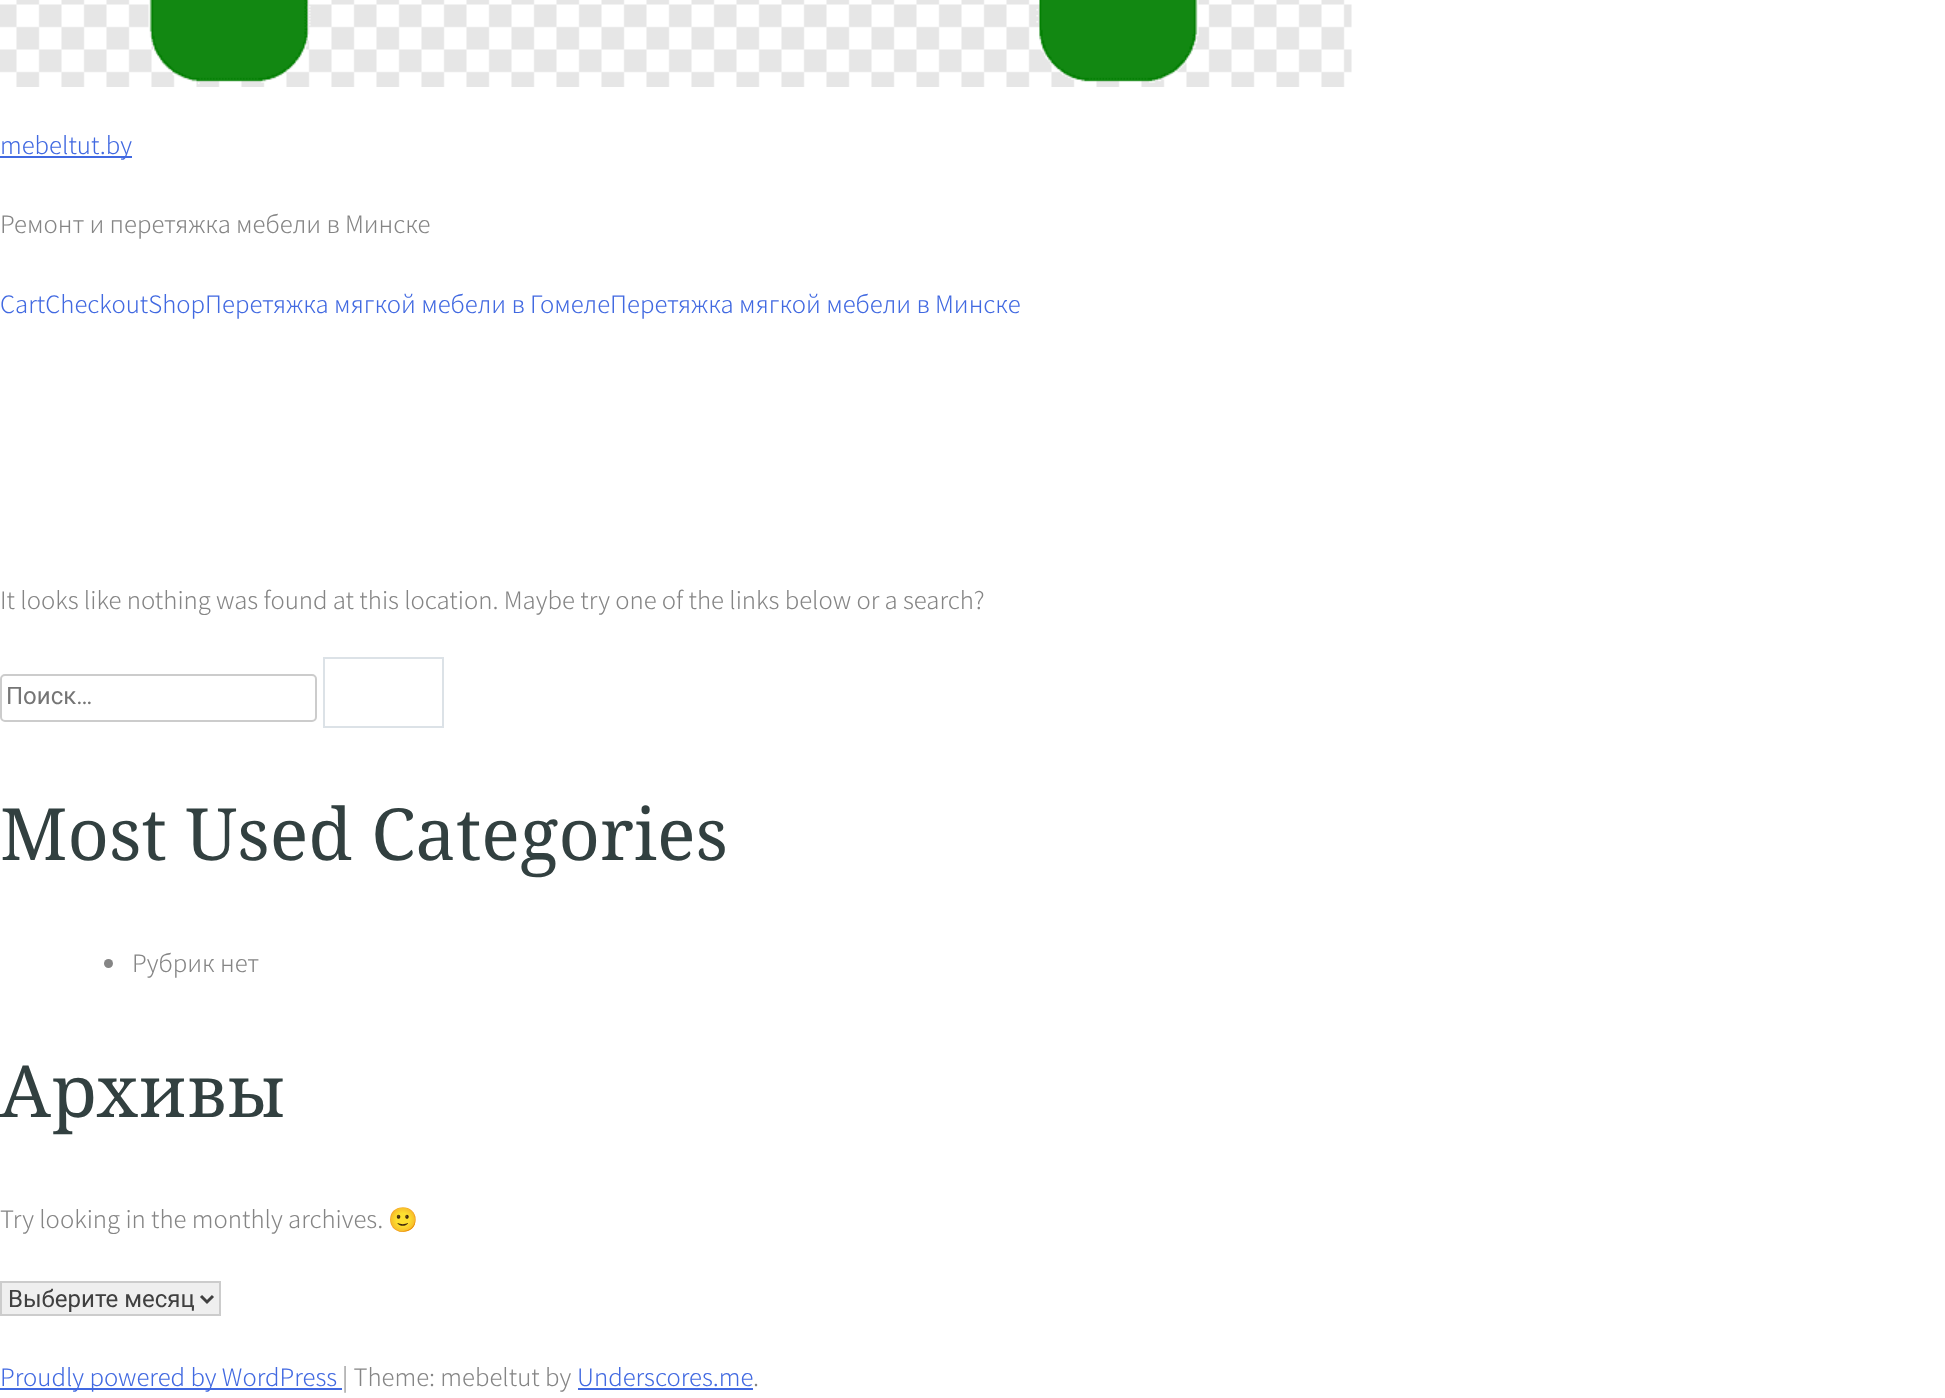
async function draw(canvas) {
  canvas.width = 1945
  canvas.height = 1398
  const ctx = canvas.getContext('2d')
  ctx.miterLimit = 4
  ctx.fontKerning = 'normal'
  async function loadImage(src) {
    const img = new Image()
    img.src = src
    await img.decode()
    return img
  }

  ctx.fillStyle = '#fff'
  ctx.fillRect(0, 0, 1945, 1398)
  ctx.drawImage(await loadImage('image0.png'), 0, 0, 1352, 87)
  ctx.fillStyle = '#4169e1'
  ctx.fillRect(0, 156, 132, 2)
  ctx.font = '300 24px Noto Sans JP'
  ctx.fillText('mebeltut.by', 0, 154)
  ctx.fillStyle = '#858585'
  ctx.fillText('Ремонт и перетяжка мебели в Минске', 0, 233)
  ctx.fillStyle = '#4169e1'
  ctx.fillText('CartCheckoutShopПеретяжка мягкой мебели в ГомелеПеретяжка мягкой мебели в Минске', 0, 313)
  ctx.fillStyle = '#858585'
  ctx.fillText('It looks like nothing was found at this location. Maybe try one of the links below or a search?', 0, 609)
  ctx.beginPath()
  ctx.roundRect(1, 675, 315, 46, 4)
  ctx.strokeStyle = '#ccc'
  ctx.lineWidth = 2
  ctx.stroke()
  ctx.font = '24px Roboto'
  ctx.fillStyle = '#757575'
  ctx.fillText('Поиск…', 6, 704)
  ctx.strokeStyle = '#dce2e7'
  ctx.strokeRect(324, 658, 119, 69)
  ctx.font = '72px Noto Serif'
  ctx.fillStyle = '#324040'
  ctx.fillText('Most Used Categories', 0, 860)
  ctx.fillStyle = '#858585'
  ctx.beginPath()
  ctx.arc(108.5, 963.5, 4.5, 0, 2 * Math.PI)
  ctx.fill()
  ctx.font = '300 24px Noto Sans JP'
  ctx.fillText('Рубрик нет', 132, 972)
  ctx.font = '72px Noto Serif'
  ctx.fillStyle = '#324040'
  ctx.fillText('Архивы', 0, 1117)
  ctx.font = '300 24px Noto Sans JP'
  ctx.fillStyle = '#858585'
  ctx.fillText('Try looking in the monthly archives.', 0, 1228)
  ctx.font = '24px Noto Color Emoji'
  ctx.fillText('🙂', 388, 1228)
  ctx.fillStyle = '#efefef'
  ctx.beginPath()
  ctx.rect(1, 1282, 219, 33)
  ctx.fill()
  ctx.strokeStyle = '#ccc'
  ctx.stroke()
  ctx.beginPath()
  ctx.moveTo(201, 1296)
  ctx.lineTo(207, 1302)
  ctx.lineTo(213, 1296)
  ctx.strokeStyle = '#404040'
  ctx.lineWidth = 3
  ctx.stroke()
  ctx.font = '24px Roboto'
  ctx.fillStyle = '#404040'
  ctx.fillText('Выберите месяц', 8, 1307)
  ctx.fillStyle = '#4169e1'
  ctx.fillRect(0, 1388, 342, 2)
  ctx.font = '300 24px Noto Sans JP'
  ctx.fillText('Proudly powered by WordPress', 0, 1386)
  ctx.fillStyle = '#858585'
  ctx.fillText('| Theme: mebeltut by', 342, 1386)
  ctx.fillStyle = '#4169e1'
  ctx.fillText('Underscores.me', 577, 1386)
  ctx.fillRect(578, 1388, 175, 2)
  ctx.fillStyle = '#858585'
  ctx.fillText('.', 753, 1386)
}

draw(document.querySelector('canvas'))
